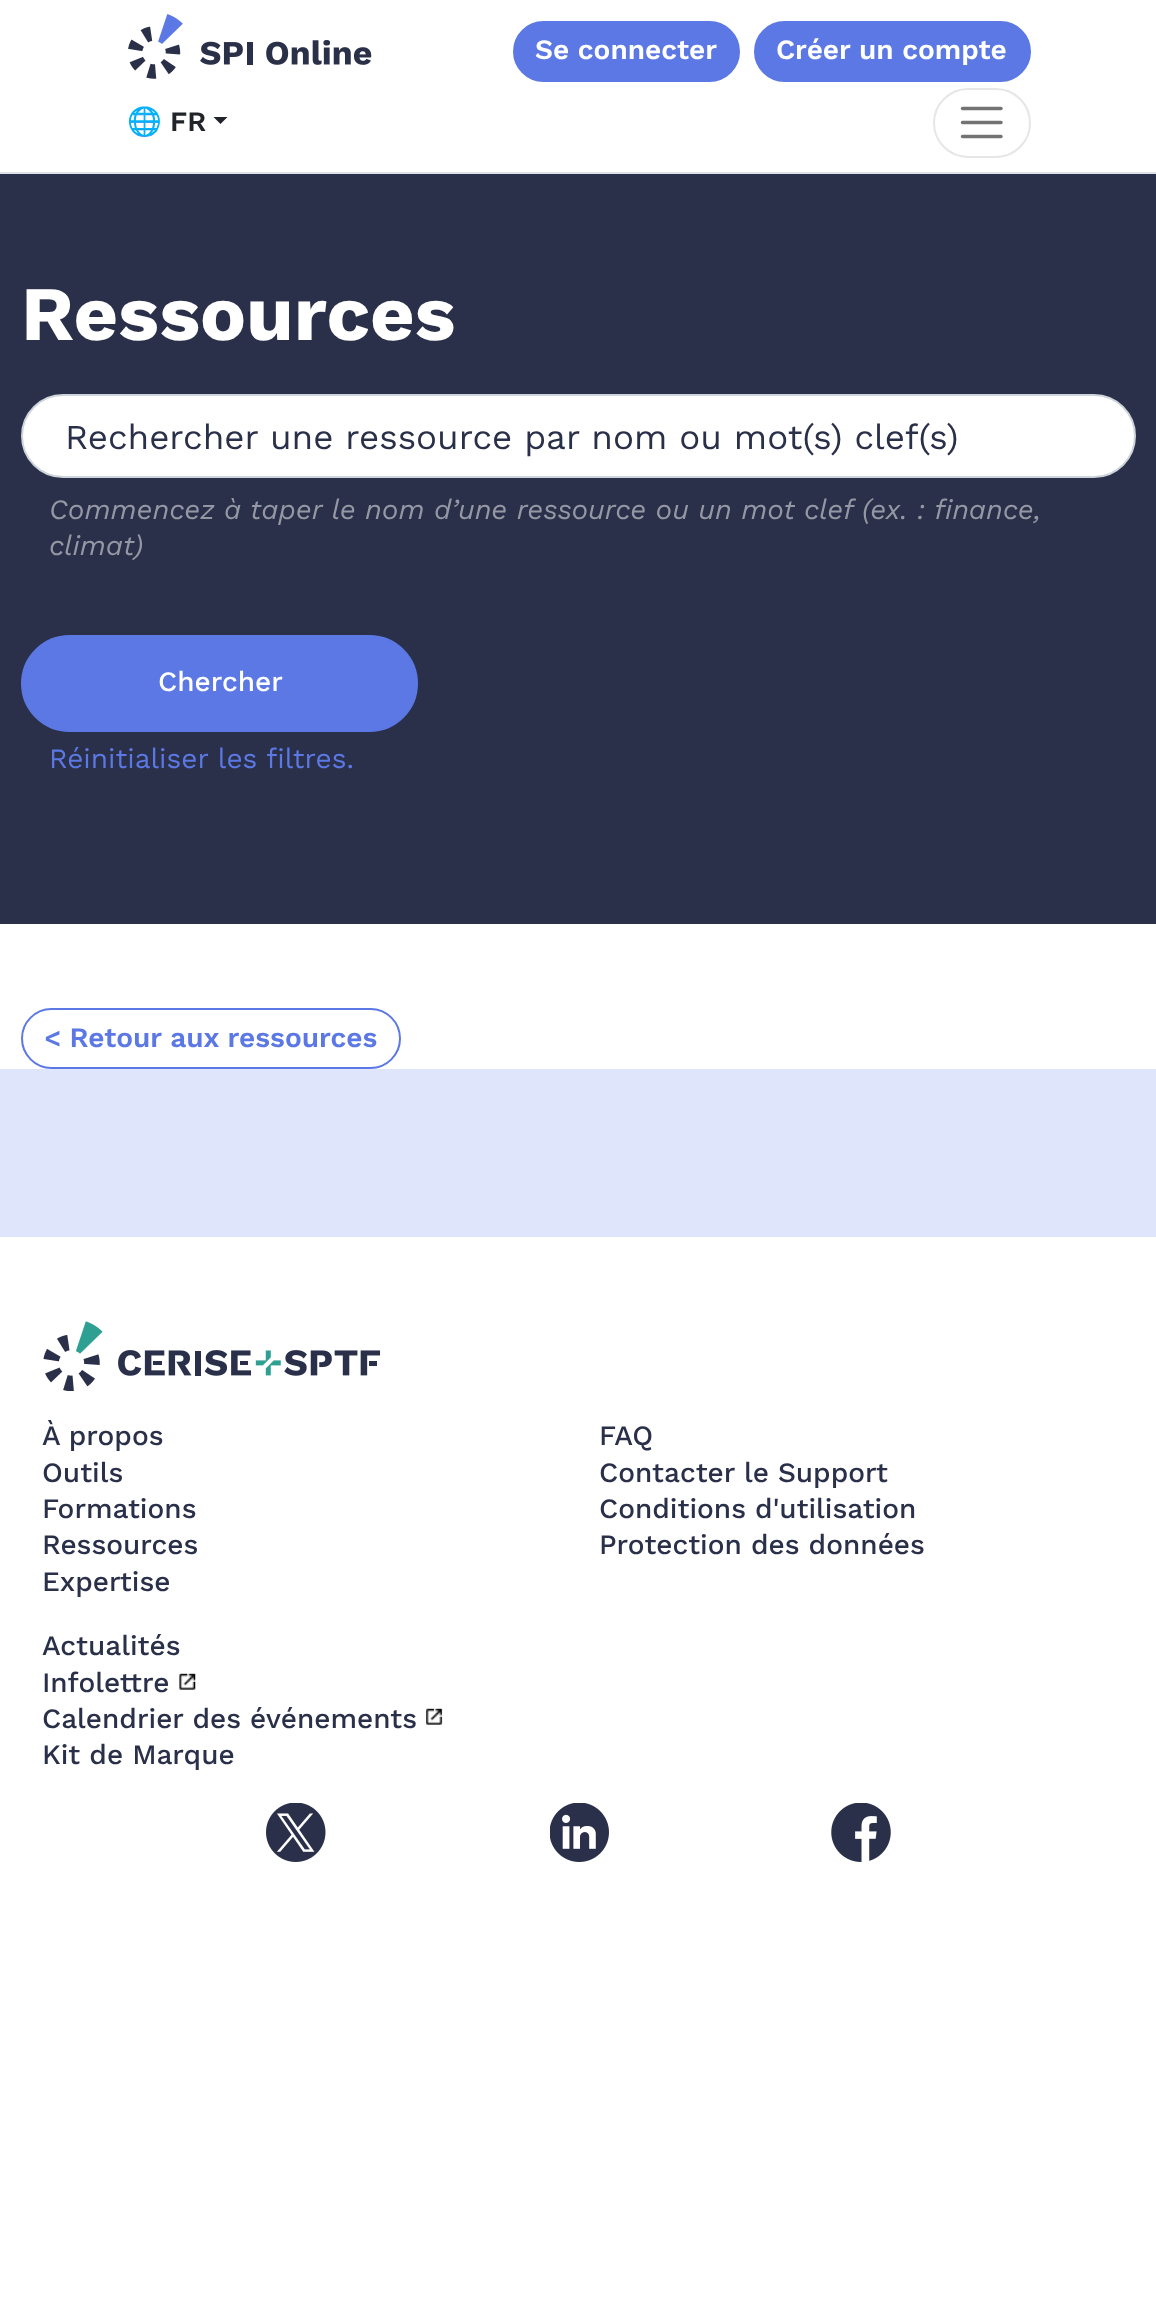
async function draw(canvas) {
  canvas.width = 1156
  canvas.height = 2317
  const ctx = canvas.getContext('2d')
  ctx.miterLimit = 4
  ctx.fontKerning = 'normal'
  async function loadImage(src) {
    const img = new Image()
    img.src = src
    await img.decode()
    return img
  }

  ctx.fillStyle = '#fff'
  ctx.fillRect(0, 0, 1156, 2317)
  ctx.fillStyle = '#dee2e6'
  ctx.fillRect(0, 172, 1156, 2)
  ctx.drawImage(await loadImage('image0.png'), 128, 14, 244, 65)
  ctx.fillStyle = '#5b78e4'
  ctx.beginPath()
  ctx.roundRect(514, 22, 225, 59, 29.5)
  ctx.fill()
  ctx.strokeStyle = '#5b78e4'
  ctx.lineWidth = 2
  ctx.stroke()
  ctx.font = '600 28px Work Sans'
  ctx.fillStyle = '#fff'
  ctx.fillText('Se connecter', 535, 59)
  ctx.fillStyle = '#5b78e4'
  ctx.beginPath()
  ctx.roundRect(755, 22, 275, 59, 29.5)
  ctx.fill()
  ctx.stroke()
  ctx.fillStyle = '#fff'
  ctx.fillText('Créer un compte', 776, 59)
  ctx.font = 'bold 28px Noto Color Emoji'
  ctx.fillStyle = '#212529'
  ctx.fillText('🌐', 127, 131)
  ctx.font = '600 28px Work Sans'
  ctx.fillText('FR', 170, 131)
  ctx.beginPath()
  ctx.moveTo(213.5, 117)
  ctx.lineTo(227.5, 117)
  ctx.lineTo(220.5, 124)
  ctx.closePath()
  ctx.fill()
  ctx.beginPath()
  ctx.roundRect(934, 89, 96, 68, 34)
  ctx.strokeStyle = '#e6e6e6'
  ctx.stroke()
  ctx.beginPath()
  ctx.moveTo(962.5, 108.5)
  ctx.lineTo(1001, 108.5)
  ctx.moveTo(962.5, 122.5)
  ctx.lineTo(1001, 122.5)
  ctx.moveTo(962.5, 136.5)
  ctx.lineTo(1001, 136.5)
  ctx.strokeStyle = '#737373'
  ctx.lineWidth = 3.5
  ctx.lineCap = 'round'
  ctx.stroke()
  ctx.fillStyle = '#2a3049'
  ctx.fillRect(0, 174, 1156, 750)
  ctx.font = 'bold 77px Work Sans'
  ctx.fillStyle = '#fff'
  ctx.fillText('Ressources', 21, 340)
  ctx.beginPath()
  ctx.roundRect(22, 395, 1113, 82, 41)
  ctx.fill()
  ctx.strokeStyle = '#ced4da'
  ctx.lineWidth = 2
  ctx.stroke()
  ctx.font = '35px Work Sans'
  ctx.fillStyle = '#2a3049'
  ctx.fillText('Rechercher une ressource par nom ou mot(s) clef(s)', 65, 449)
  ctx.font = 'italic 28px Work Sans'
  ctx.fillStyle = '#9598a4'
  ctx.fillText('Commencez à taper le nom d’une ressource ou un mot clef (ex. : finance,', 49, 519)
  ctx.fillText('climat)', 49, 555)
  ctx.fillStyle = '#5b78e4'
  ctx.beginPath()
  ctx.roundRect(22, 636, 395, 95, 47.5)
  ctx.fill()
  ctx.strokeStyle = '#5b78e4'
  ctx.stroke()
  ctx.font = '500 28px Work Sans'
  ctx.fillStyle = '#fff'
  ctx.fillText('Chercher', 158, 691)
  ctx.font = '28px Work Sans'
  ctx.fillStyle = '#5b78e4'
  ctx.fillText('Réinitialiser les filtres.', 49, 768)
  ctx.fillStyle = '#dfe5fa'
  ctx.fillRect(0, 1069, 1156, 168)
  ctx.beginPath()
  ctx.roundRect(22, 1009, 378, 59, 29.5)
  ctx.stroke()
  ctx.font = '600 28px Work Sans'
  ctx.fillStyle = '#5b78e4'
  ctx.fillText('< Retour aux ressources', 44, 1047)
  ctx.drawImage(await loadImage('image1.png'), 43, 1321, 338, 70)
  ctx.font = '500 28px Work Sans'
  ctx.fillStyle = '#2a3049'
  ctx.fillText('À propos', 42, 1445)
  ctx.fillText('Outils', 42, 1482)
  ctx.fillText('Formations', 42, 1518)
  ctx.fillText('Ressources', 42, 1554)
  ctx.fillText('Expertise', 42, 1591)
  ctx.fillText('FAQ', 599, 1445)
  ctx.fillText('Contacter le Support', 599, 1482)
  ctx.fillText('Conditions d\'utilisation', 599, 1518)
  ctx.fillText('Protection des données', 599, 1554)
  ctx.fillText('Actualités', 42, 1655)
  ctx.fillText('Infolettre', 42, 1692)
  ctx.drawImage(await loadImage('image2.png'), 179, 1673, 17, 17)
  ctx.fillText('Calendrier des événements', 42, 1728)
  ctx.drawImage(await loadImage('image3.png'), 426, 1708, 17, 17)
  ctx.fillText('Kit de Marque', 42, 1764)
  ctx.drawImage(await loadImage('image4.png'), 266, 1803, 60, 59)
  ctx.drawImage(await loadImage('image5.png'), 550, 1803, 59, 59)
  ctx.drawImage(await loadImage('image6.png'), 831, 1803, 60, 59)
}

draw(document.querySelector('canvas'))
